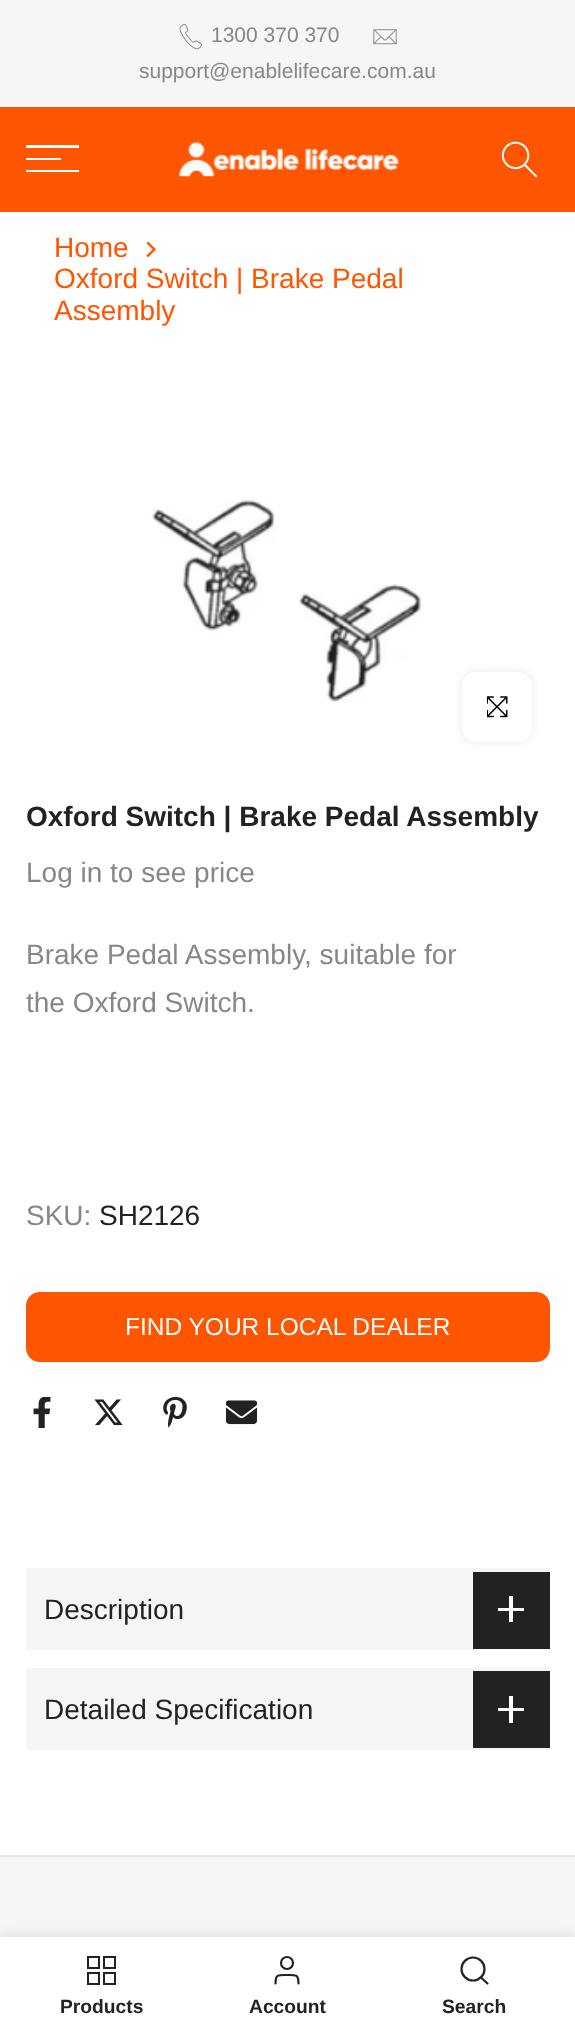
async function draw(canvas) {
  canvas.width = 575
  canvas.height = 2032
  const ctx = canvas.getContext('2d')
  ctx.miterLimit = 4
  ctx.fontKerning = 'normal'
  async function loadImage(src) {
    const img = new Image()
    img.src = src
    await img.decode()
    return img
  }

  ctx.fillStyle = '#fff'
  ctx.fillRect(0, 0, 575, 2032)
  ctx.fillStyle = '#f6f6f8'
  ctx.fillRect(0, 0, 575, 107)
  ctx.drawImage(await loadImage('image0.png'), 179, 24, 23, 26)
  ctx.font = '21px Liberation Sans'
  ctx.fillStyle = '#878787'
  ctx.fillText('1300 370 370', 211, 42)
  ctx.drawImage(await loadImage('image1.png'), 373, 29, 24, 16)
  ctx.fillText('support@enablelifecare.com.au', 139, 78)
  ctx.fillStyle = '#fe5500'
  ctx.fillRect(0, 107, 575, 105)
  ctx.fillStyle = '#fff'
  ctx.fillRect(26, 145, 53, 3)
  ctx.fillRect(26, 158, 35, 2)
  ctx.fillRect(26, 170, 53, 2)
  ctx.drawImage(await loadImage('image2.png'), 178, 141, 221, 37)
  ctx.drawImage(await loadImage('image3.png'), 501, 141, 37, 37)
  ctx.font = '28px Liberation Sans'
  ctx.fillStyle = '#fe5500'
  ctx.fillText('Home', 54, 257)
  ctx.drawImage(await loadImage('image4.png'), 146, 242, 10, 15)
  ctx.fillText('Oxford Switch | Brake Pedal', 54, 288)
  ctx.fillText('Assembly', 54, 320)
  ctx.drawImage(await loadImage('image5.png'), 151, 500, 271, 203)
  ctx.fillStyle = '#00000017'
  ctx.filter = 'blur(4.5px)'
  ctx.beginPath()
  ctx.roundRect(462, 672, 70, 70, 14)
  ctx.fill()
  ctx.filter = 'none'
  ctx.fillStyle = '#fff'
  ctx.beginPath()
  ctx.roundRect(462, 672, 70, 70, 14)
  ctx.fill()
  ctx.drawImage(await loadImage('image6.png'), 487, 696, 21, 22)
  ctx.font = 'bold 28px Liberation Sans'
  ctx.fillStyle = '#222'
  ctx.fillText('Oxford Switch | Brake Pedal Assembly', 26, 826)
  ctx.font = '28px Liberation Sans'
  ctx.fillStyle = '#878787'
  ctx.fillText('Log in to see price', 26, 882)
  ctx.fillText('Brake Pedal Assembly, suitable for', 26, 964)
  ctx.fillText('the Oxford Switch.', 26, 1012)
  ctx.fillText('SKU:', 26, 1225)
  ctx.fillStyle = '#222'
  ctx.fillText('SH2126', 99, 1225)
  ctx.fillStyle = '#fe5500'
  ctx.beginPath()
  ctx.roundRect(26, 1292, 524, 70, 14)
  ctx.fill()
  ctx.font = '24.5px Liberation Sans'
  ctx.fillStyle = '#fff'
  ctx.fillText('FIND YOUR LOCAL DEALER', 125, 1335)
  ctx.drawImage(await loadImage('image7.png'), 33, 1397, 18, 31)
  ctx.drawImage(await loadImage('image8.png'), 94, 1399, 29, 27)
  ctx.drawImage(await loadImage('image9.png'), 163, 1397, 24, 31)
  ctx.drawImage(await loadImage('image10.png'), 226, 1400, 31, 25)
  ctx.fillStyle = '#f5f5f5'
  ctx.fillRect(26, 1568, 524, 82)
  ctx.font = '28px Liberation Sans'
  ctx.fillStyle = '#222'
  ctx.fillText('Description', 44, 1619)
  ctx.fillRect(473, 1572, 77, 77)
  ctx.fillStyle = '#fff'
  ctx.fillRect(509, 1596, 4, 26)
  ctx.fillRect(498, 1608, 26, 3)
  ctx.fillStyle = '#f5f5f5'
  ctx.fillRect(26, 1668, 524, 82)
  ctx.fillStyle = '#222'
  ctx.fillText('Detailed Specification', 44, 1719)
  ctx.fillRect(473, 1671, 77, 77)
  ctx.fillStyle = '#fff'
  ctx.fillRect(509, 1696, 4, 27)
  ctx.fillRect(498, 1708, 26, 3)
  ctx.fillStyle = '#f6f6f8'
  ctx.fillRect(0, 1857, 575, 80)
  ctx.fillStyle = '#e6e6e6'
  ctx.fillRect(0, 1855, 575, 2)
  ctx.fillStyle = '#0000001f'
  ctx.filter = 'blur(8px)'
  ctx.beginPath()
  ctx.rect(0, 1937, 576, 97)
  ctx.fill()
  ctx.filter = 'none'
  ctx.fillStyle = '#fff'
  ctx.fillRect(0, 1937, 575, 95)
  ctx.strokeStyle = '#222'
  ctx.lineWidth = 2
  ctx.strokeRect(88, 1957, 11, 11)
  ctx.strokeRect(104, 1957, 11, 11)
  ctx.strokeRect(88, 1973, 11, 11)
  ctx.strokeRect(104, 1973, 11, 11)
  ctx.font = 'bold 19.25px Liberation Sans'
  ctx.fillStyle = '#222'
  ctx.fillText('Products', 60, 2013)
  ctx.beginPath()
  ctx.arc(287, 1963, 6, 0, 2 * Math.PI)
  ctx.lineWidth = 2.2
  ctx.stroke()
  ctx.beginPath()
  ctx.moveTo(298.5, 1983.5)
  ctx.bezierCurveTo(298.5, 1974, 295.5, 1975, 287, 1975)
  ctx.bezierCurveTo(278.5, 1975, 275.5, 1974, 275.5, 1983.5)
  ctx.lineCap = 'round'
  ctx.lineJoin = 'round'
  ctx.stroke()
  ctx.fillText('Account', 249, 2013)
  ctx.beginPath()
  ctx.arc(473, 1969, 11.5, 0, 2 * Math.PI)
  ctx.stroke()
  ctx.beginPath()
  ctx.moveTo(487.5, 1983.5)
  ctx.lineTo(481, 1977.5)
  ctx.stroke()
  ctx.fillText('Search', 442, 2013)
}

draw(document.querySelector('canvas'))
